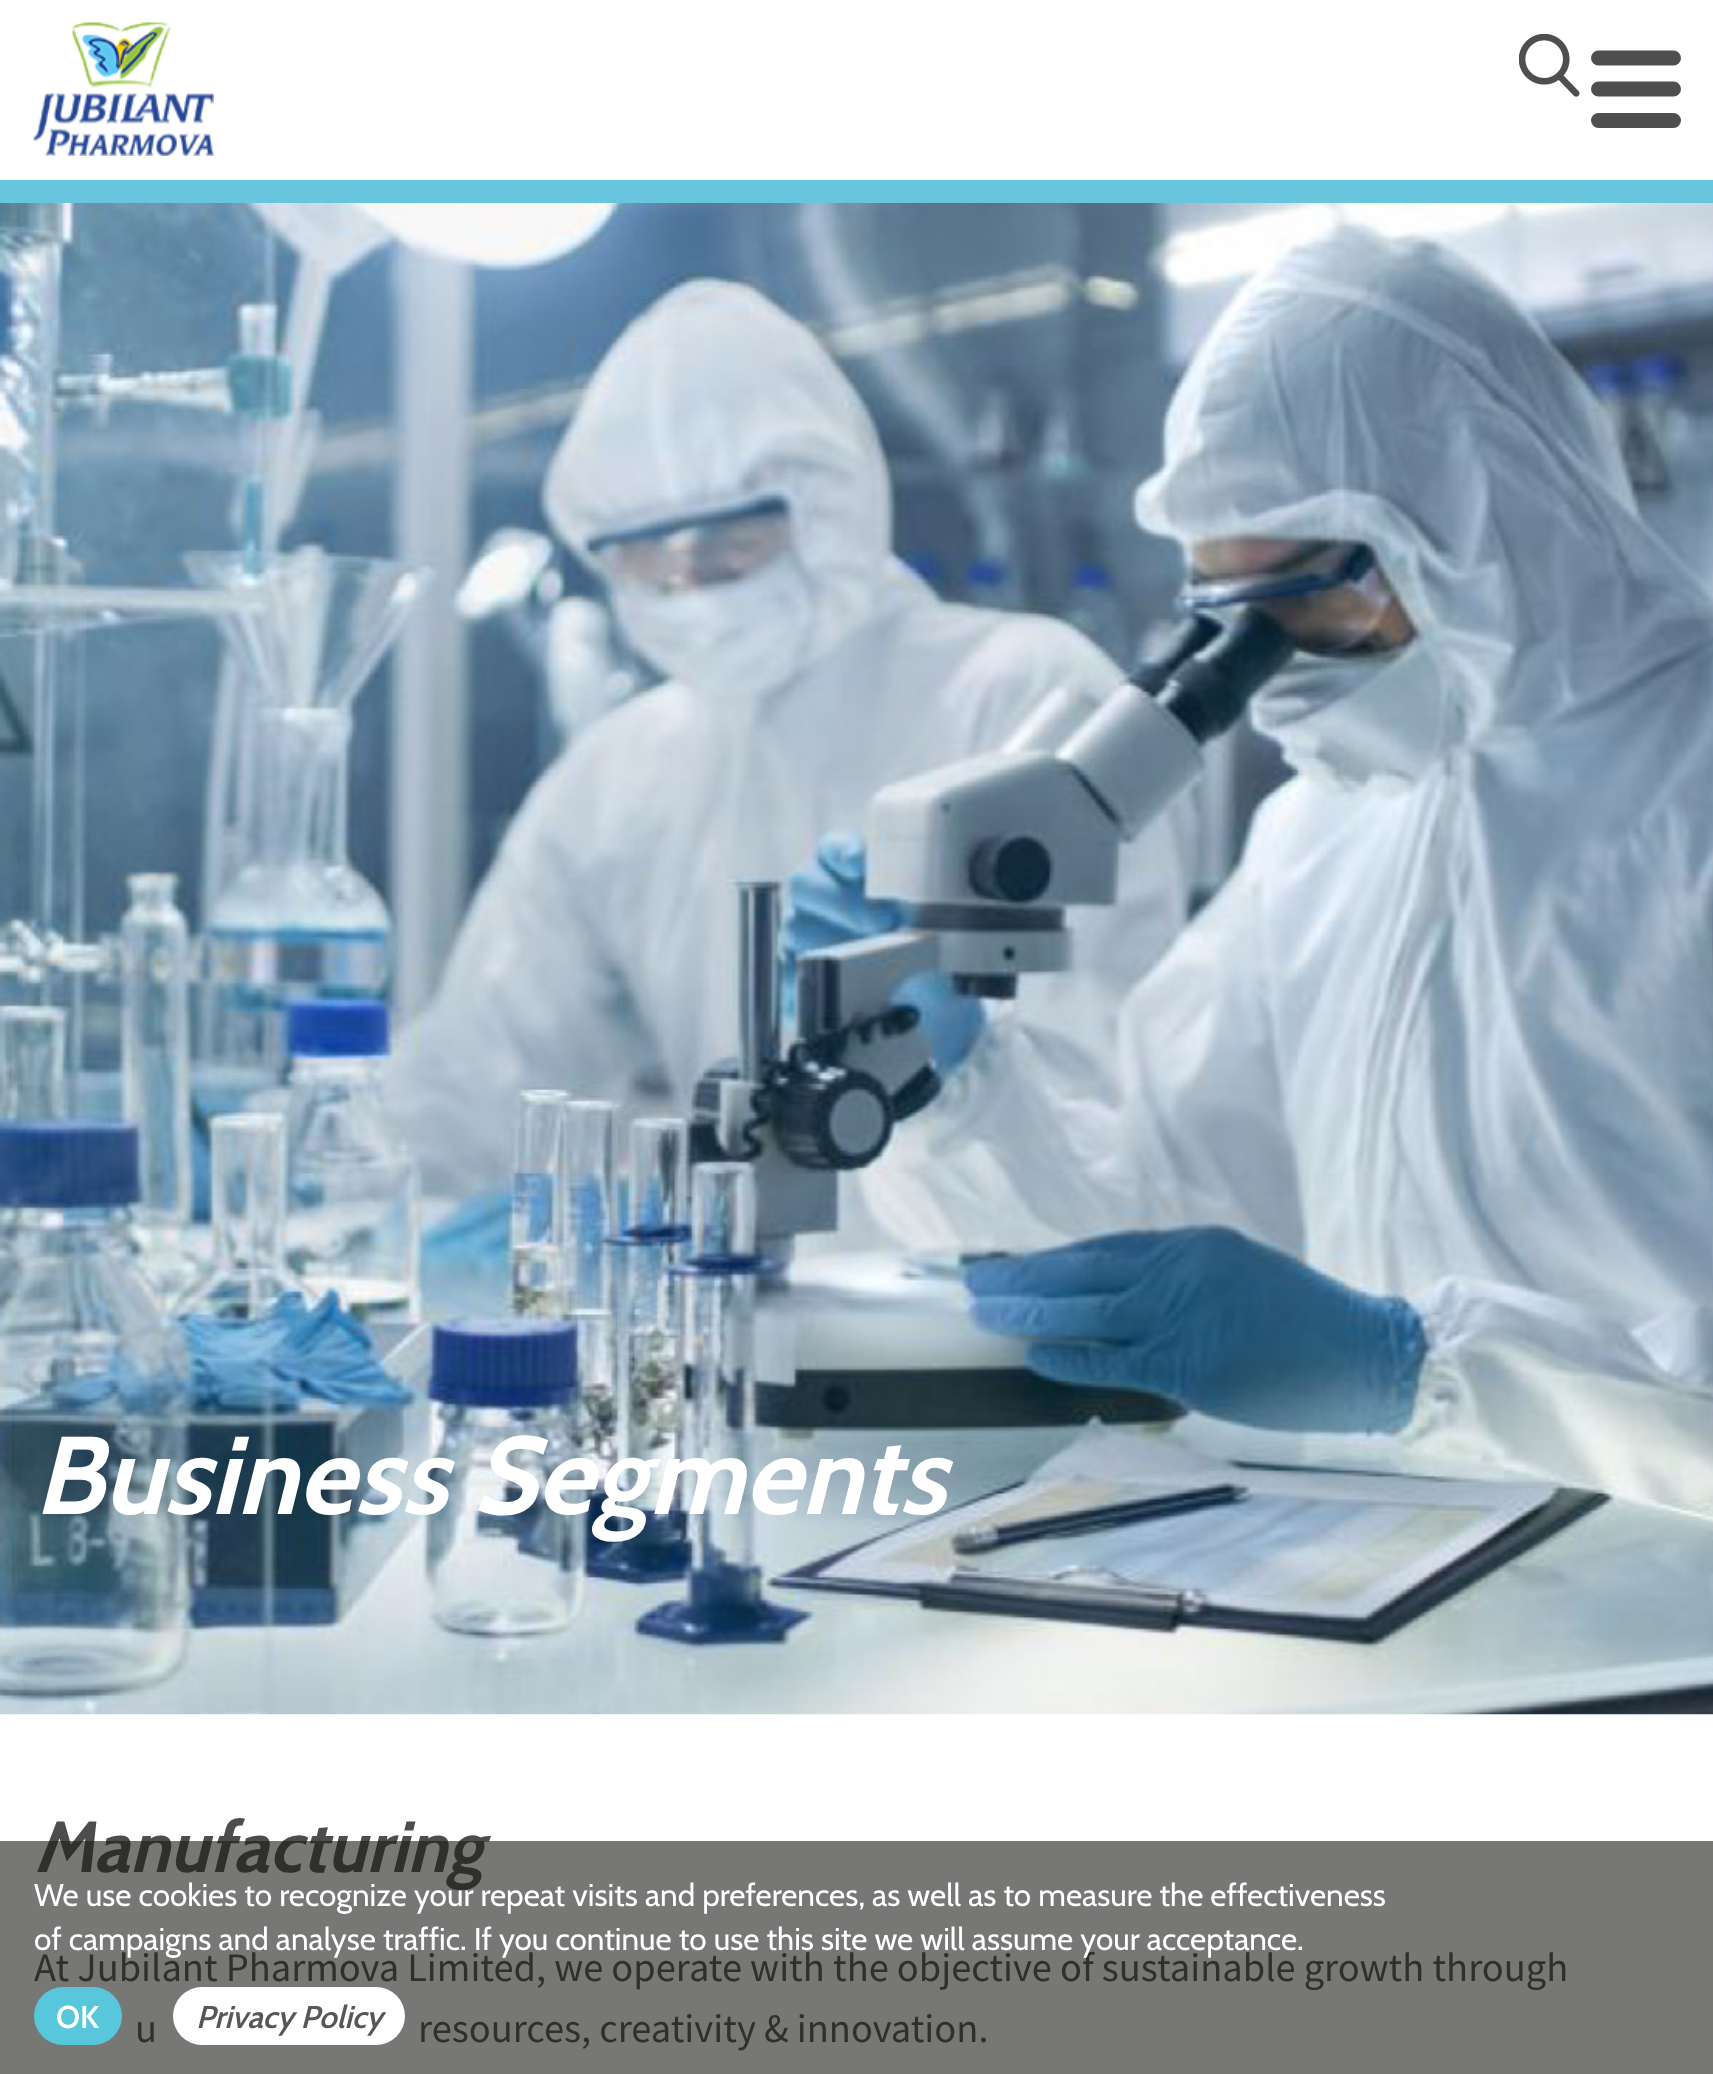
async function draw(canvas) {
  canvas.width = 1713
  canvas.height = 2074
  const ctx = canvas.getContext('2d')
  ctx.miterLimit = 4
  ctx.fontKerning = 'normal'
  async function loadImage(src) {
    const img = new Image()
    img.src = src
    await img.decode()
    return img
  }

  ctx.fillStyle = '#fff'
  ctx.fillRect(0, 0, 1713, 2074)
  ctx.drawImage(await loadImage('image0.png'), 33, 22, 181, 134)
  ctx.drawImage(await loadImage('image1.png'), 1519, 34, 61, 63)
  ctx.beginPath()
  ctx.moveTo(1598.5, 58)
  ctx.lineTo(1673.5, 58)
  ctx.strokeStyle = '#4e4e4e'
  ctx.lineWidth = 15
  ctx.lineCap = 'round'
  ctx.lineJoin = 'round'
  ctx.stroke()
  ctx.beginPath()
  ctx.moveTo(1598.5, 89)
  ctx.lineTo(1673.5, 89)
  ctx.stroke()
  ctx.beginPath()
  ctx.moveTo(1598.5, 120.5)
  ctx.lineTo(1673.5, 120.5)
  ctx.stroke()
  ctx.fillStyle = '#67c6dd'
  ctx.fillRect(0, 180, 1713, 23)
  ctx.drawImage(await loadImage('image2.png'), 0, 203, 1713, 1512)
  ctx.font = 'italic bold 110.25px Cabin'
  ctx.fillStyle = '#fff'
  ctx.fillText('Business Segments', 34, 1514)
  ctx.font = 'italic bold 72px Cabin'
  ctx.fillStyle = '#4d4d4d'
  ctx.fillText('Manufacturing', 34, 1872)
  ctx.font = '40.5px Source Sans Pro'
  ctx.fillText('At Jubilant Pharmova Limited, we operate with the objective of sustainable growth through', 34, 1981)
  ctx.fillText('u', 135, 2042)
  ctx.fillText('resources, creativity & innovation.', 418, 2042)
  ctx.fillStyle = '#1d1d1b99'
  ctx.fillRect(0, 1841, 1713, 233)
  ctx.font = '31.5px Cabin'
  ctx.fillStyle = '#fff'
  ctx.fillText('We use cookies to recognize your repeat visits and preferences, as well as to measure the effectiveness', 34, 1906)
  ctx.fillText('of campaigns and analyse traffic. If you continue to use this site we will assume your acceptance.', 34, 1950)
  ctx.fillStyle = '#58c6db'
  ctx.beginPath()
  ctx.roundRect(34, 1987, 88, 58, 29)
  ctx.fill()
  ctx.font = '600 31.5px Cabin'
  ctx.fillStyle = '#fff'
  ctx.fillText('OK', 56, 2028)
  ctx.beginPath()
  ctx.roundRect(173, 1987, 232, 58, 29)
  ctx.fill()
  ctx.font = 'italic 600 31.5px Cabin'
  ctx.fillStyle = '#575756'
  ctx.fillText('Privacy Policy', 196, 2028)
}

draw(document.querySelector('canvas'))
